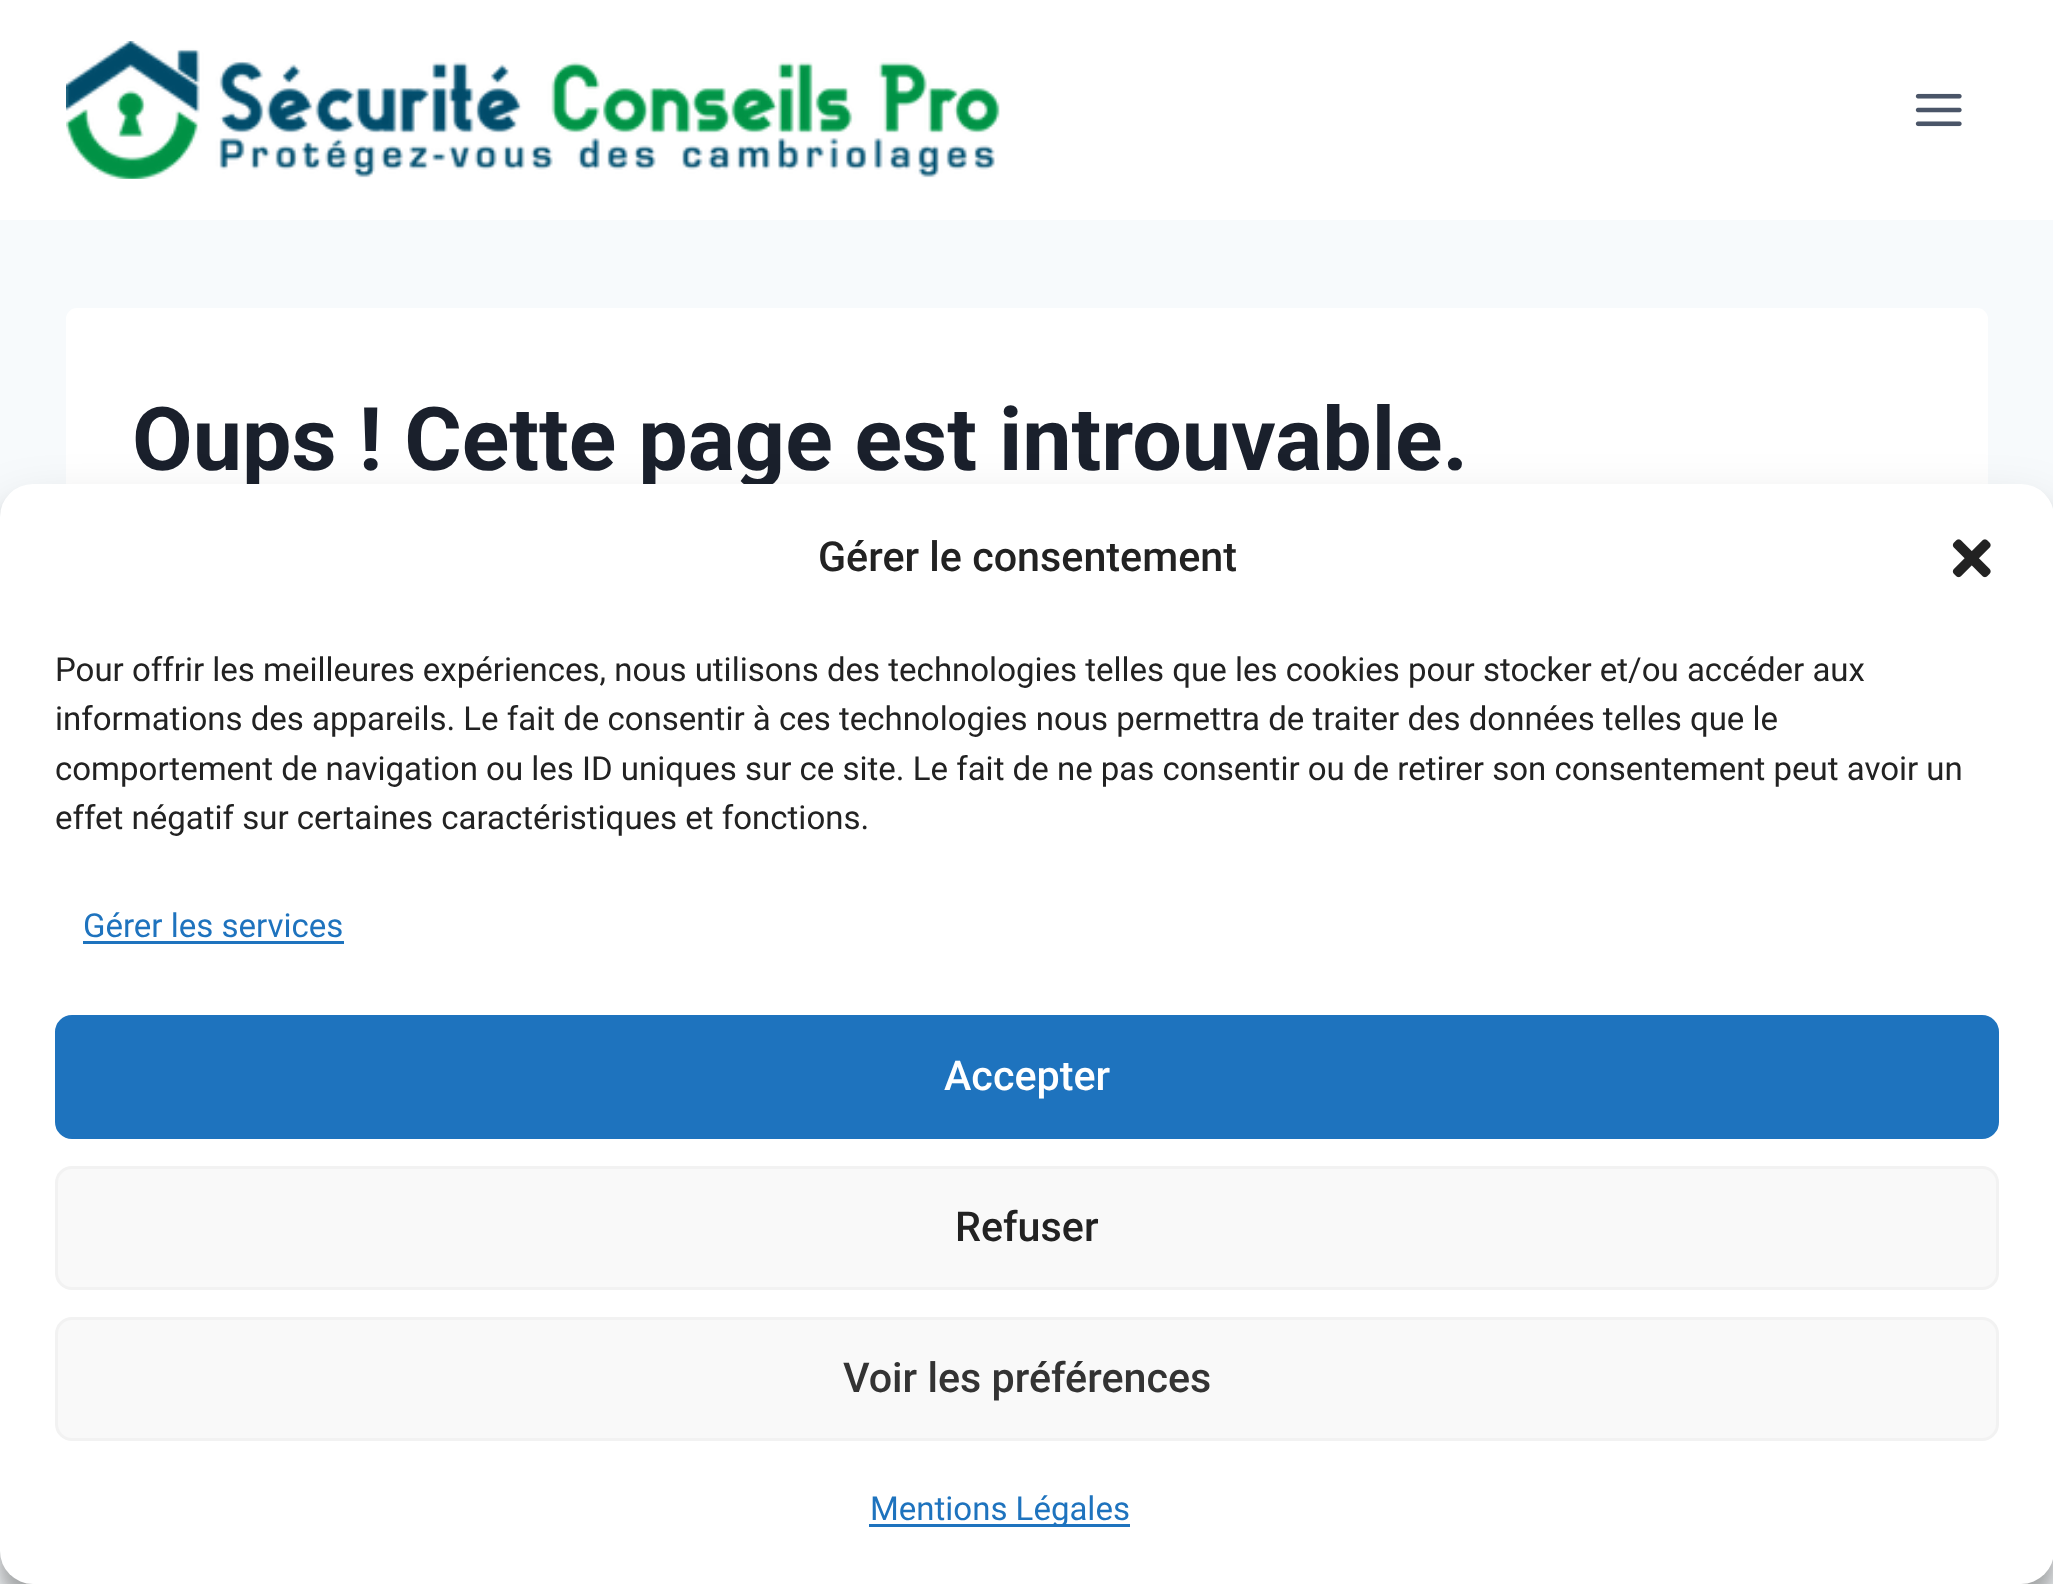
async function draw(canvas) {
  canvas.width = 2053
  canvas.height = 1584
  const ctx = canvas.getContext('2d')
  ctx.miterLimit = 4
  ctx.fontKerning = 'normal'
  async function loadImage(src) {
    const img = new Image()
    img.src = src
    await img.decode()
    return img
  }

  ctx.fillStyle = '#f7fafc'
  ctx.fillRect(0, 0, 2053, 1584)
  ctx.fillStyle = '#fff'
  ctx.fillRect(0, 0, 2053, 220)
  ctx.drawImage(await loadImage('image0.png'), 66, 41, 934, 138)
  ctx.drawImage(await loadImage('image1.png'), 1915, 93, 47, 34)
  ctx.beginPath()
  ctx.roundRect(66, 308, 1922, 619, 11)
  ctx.fill()
  ctx.font = 'bold 88px Roboto'
  ctx.fillStyle = '#1a202c'
  ctx.fillText('Oups ! Cette page est introuvable.', 132, 470)
  ctx.fillStyle = '#0000003b'
  ctx.filter = 'blur(8px)'
  ctx.beginPath()
  ctx.roundRect(0, 501, 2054, 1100, 33)
  ctx.fill()
  ctx.filter = 'none'
  ctx.fillStyle = '#00000030'
  ctx.filter = 'blur(27.5px)'
  ctx.beginPath()
  ctx.roundRect(0, 512, 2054, 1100, 33)
  ctx.fill()
  ctx.filter = 'none'
  ctx.fillStyle = '#fff'
  ctx.beginPath()
  ctx.roundRect(0, 484, 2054, 1100, 33)
  ctx.fill()
  ctx.font = '500 41.25px Roboto'
  ctx.fillStyle = '#222'
  ctx.fillText('Gérer le consentement', 818, 571)
  ctx.drawImage(await loadImage('image2.png'), 1952, 539, 39, 39)
  ctx.font = '33px Roboto'
  ctx.fillText('Pour offrir les meilleures expériences, nous utilisons des technologies telles que les cookies pour stocker et/ou accéder aux', 55, 681)
  ctx.fillText('informations des appareils. Le fait de consentir à ces technologies nous permettra de traiter des données telles que le', 55, 730)
  ctx.fillText('comportement de navigation ou les ID uniques sur ce site. Le fait de ne pas consentir ou de retirer son consentement peut avoir un', 55, 780)
  ctx.fillText('effet négatif sur certaines caractéristiques et fonctions.', 55, 829)
  ctx.fillStyle = '#1e73be'
  ctx.fillText('Gérer les services', 83, 937)
  ctx.fillRect(83, 941, 261, 3)
  ctx.beginPath()
  ctx.roundRect(56.5, 1016.5, 1941, 121, 15.5)
  ctx.fill()
  ctx.strokeStyle = '#1e73be'
  ctx.lineWidth = 3
  ctx.stroke()
  ctx.font = '500 41.25px Roboto'
  ctx.fillStyle = '#fff'
  ctx.fillText('Accepter', 944, 1090)
  ctx.fillStyle = '#f9f9f9'
  ctx.beginPath()
  ctx.roundRect(56.5, 1167.5, 1941, 121, 15.5)
  ctx.fill()
  ctx.strokeStyle = '#f2f2f2'
  ctx.stroke()
  ctx.fillStyle = '#222'
  ctx.fillText('Refuser', 955, 1241)
  ctx.fillStyle = '#f9f9f9'
  ctx.beginPath()
  ctx.roundRect(56.5, 1318.5, 1941, 121, 15.5)
  ctx.fill()
  ctx.stroke()
  ctx.fillStyle = '#333'
  ctx.fillText('Voir les préférences', 843, 1392)
  ctx.fillStyle = '#1e73be'
  ctx.fillRect(869, 1524, 261, 3)
  ctx.font = '33px Roboto'
  ctx.fillText('Mentions Légales', 870, 1520)
}

draw(document.querySelector('canvas'))
